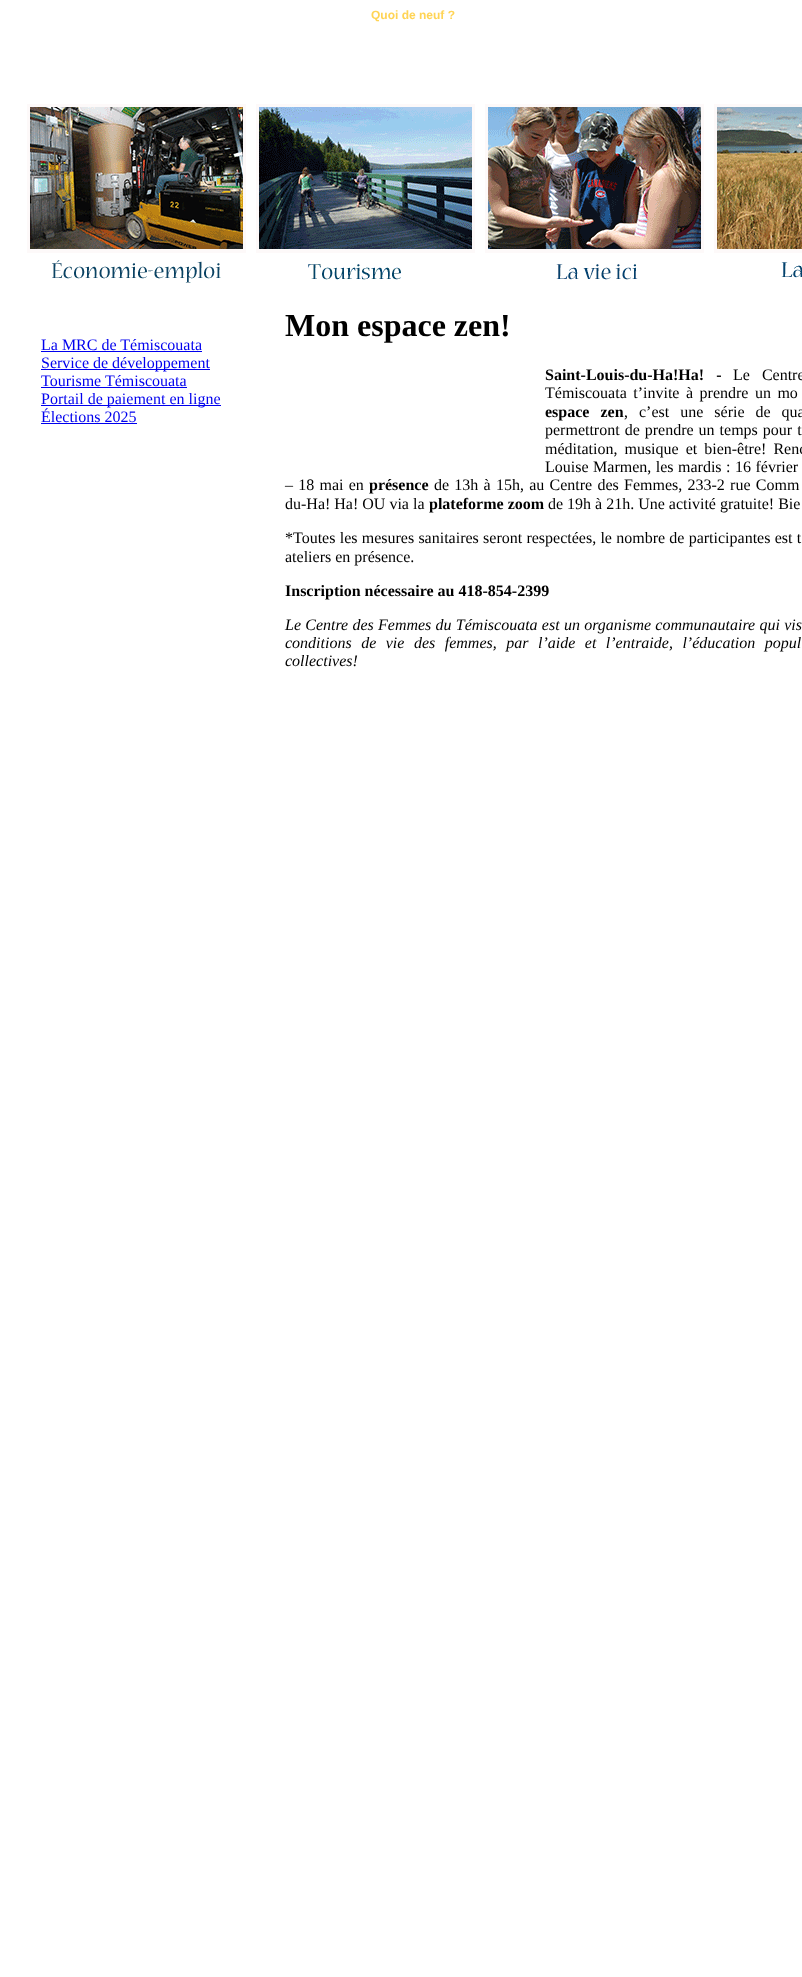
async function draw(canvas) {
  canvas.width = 802
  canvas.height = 1977
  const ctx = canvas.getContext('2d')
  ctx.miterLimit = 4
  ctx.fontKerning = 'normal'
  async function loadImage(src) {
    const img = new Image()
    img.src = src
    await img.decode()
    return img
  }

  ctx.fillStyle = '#fff'
  ctx.fillRect(0, 0, 802, 1977)
  ctx.font = 'bold 12px Liberation Sans'
  ctx.fillStyle = '#ffd455'
  ctx.fillText('Quoi de neuf ?', 371, 19)
  ctx.drawImage(await loadImage('image0.png'), 27, 104, 219, 179)
  ctx.drawImage(await loadImage('image1.png'), 256, 104, 219, 176)
  ctx.drawImage(await loadImage('image2.png'), 485, 104, 219, 176)
  ctx.drawImage(await loadImage('image3.png'), 714, 104, 88, 174)
  ctx.font = '16px Liberation Serif'
  ctx.fillStyle = '#00e'
  ctx.fillText('La MRC de Témiscouata', 41, 350)
  ctx.fillRect(41, 351, 161, 1)
  ctx.fillRect(41, 369, 169, 1)
  ctx.fillText('Service de développement', 41, 368)
  ctx.fillText('Tourisme Témiscouata', 41, 386)
  ctx.fillRect(41, 387, 146, 1)
  ctx.fillRect(41, 405, 180, 1)
  ctx.fillText('Portail de paiement en ligne', 41, 404)
  ctx.fillText('Élections 2025', 41, 422)
  ctx.fillRect(41, 423, 96, 1)
  ctx.font = 'bold 32px Liberation Serif'
  ctx.fillStyle = '#000'
  ctx.fillText('Mon espace zen!', 285, 336)
  ctx.wordSpacing = '8px'
  ctx.font = 'bold 16px Liberation Serif'
  ctx.fillText('Saint-Louis-du-Ha!Ha! -', 545, 380)
  ctx.font = '16px Liberation Serif'
  ctx.fillText('Le Centre', 733, 380)
  ctx.wordSpacing = '2.5px'
  ctx.fillText('Témiscouata t’invite à prendre un mo', 545, 398)
  ctx.wordSpacing = '7px'
  ctx.font = 'bold 16px Liberation Serif'
  ctx.fillText('espace zen', 545, 417)
  ctx.font = '16px Liberation Serif'
  ctx.fillText(', c’est une série de qua', 624, 417)
  ctx.wordSpacing = '1px'
  ctx.fillText('permettront de prendre un temps pour t', 545, 435)
  ctx.wordSpacing = '3px'
  ctx.fillText('méditation, musique et bien-être! Renc', 545, 454)
  ctx.wordSpacing = '0.5px'
  ctx.fillText('Louise Marmen, les mardis : 16 février', 545, 472)
  ctx.wordSpacing = '1.25px'
  ctx.fillText('– 18 mai en', 285, 490)
  ctx.wordSpacing = '0px'
  ctx.font = 'bold 16px Liberation Serif'
  ctx.fillText('présence', 369, 490)
  ctx.wordSpacing = '1.25px'
  ctx.font = '16px Liberation Serif'
  ctx.fillText('de 13h à 15h, au Centre des Femmes, 233-2 rue Comm', 434, 490)
  ctx.wordSpacing = '0px'
  ctx.fillText('du-Ha! Ha! OU via la', 285, 509)
  ctx.font = 'bold 16px Liberation Serif'
  ctx.fillText('plateforme zoom', 429, 509)
  ctx.font = '16px Liberation Serif'
  ctx.fillText('de 19h à 21h. Une activité gratuite! Bie', 548, 509)
  ctx.wordSpacing = '0.25px'
  ctx.fillText('*Toutes les mesures sanitaires seront respectées, le nombre de participantes est t', 285, 543)
  ctx.wordSpacing = '0px'
  ctx.fillText('ateliers en présence.', 285, 562)
  ctx.font = 'bold 16px Liberation Serif'
  ctx.fillText('Inscription nécessaire au 418-854-2399', 285, 596)
  ctx.wordSpacing = '0.25px'
  ctx.font = 'italic 16px Liberation Serif'
  ctx.fillText('Le Centre des Femmes du Témiscouata est un organisme communautaire qui vis', 285, 630)
  ctx.wordSpacing = '5.5px'
  ctx.fillText('conditions de vie des femmes, par l’aide et l’entraide, l’éducation popul', 285, 648)
  ctx.wordSpacing = '0px'
  ctx.fillText('collectives!', 285, 666)
}

draw(document.querySelector('canvas'))
